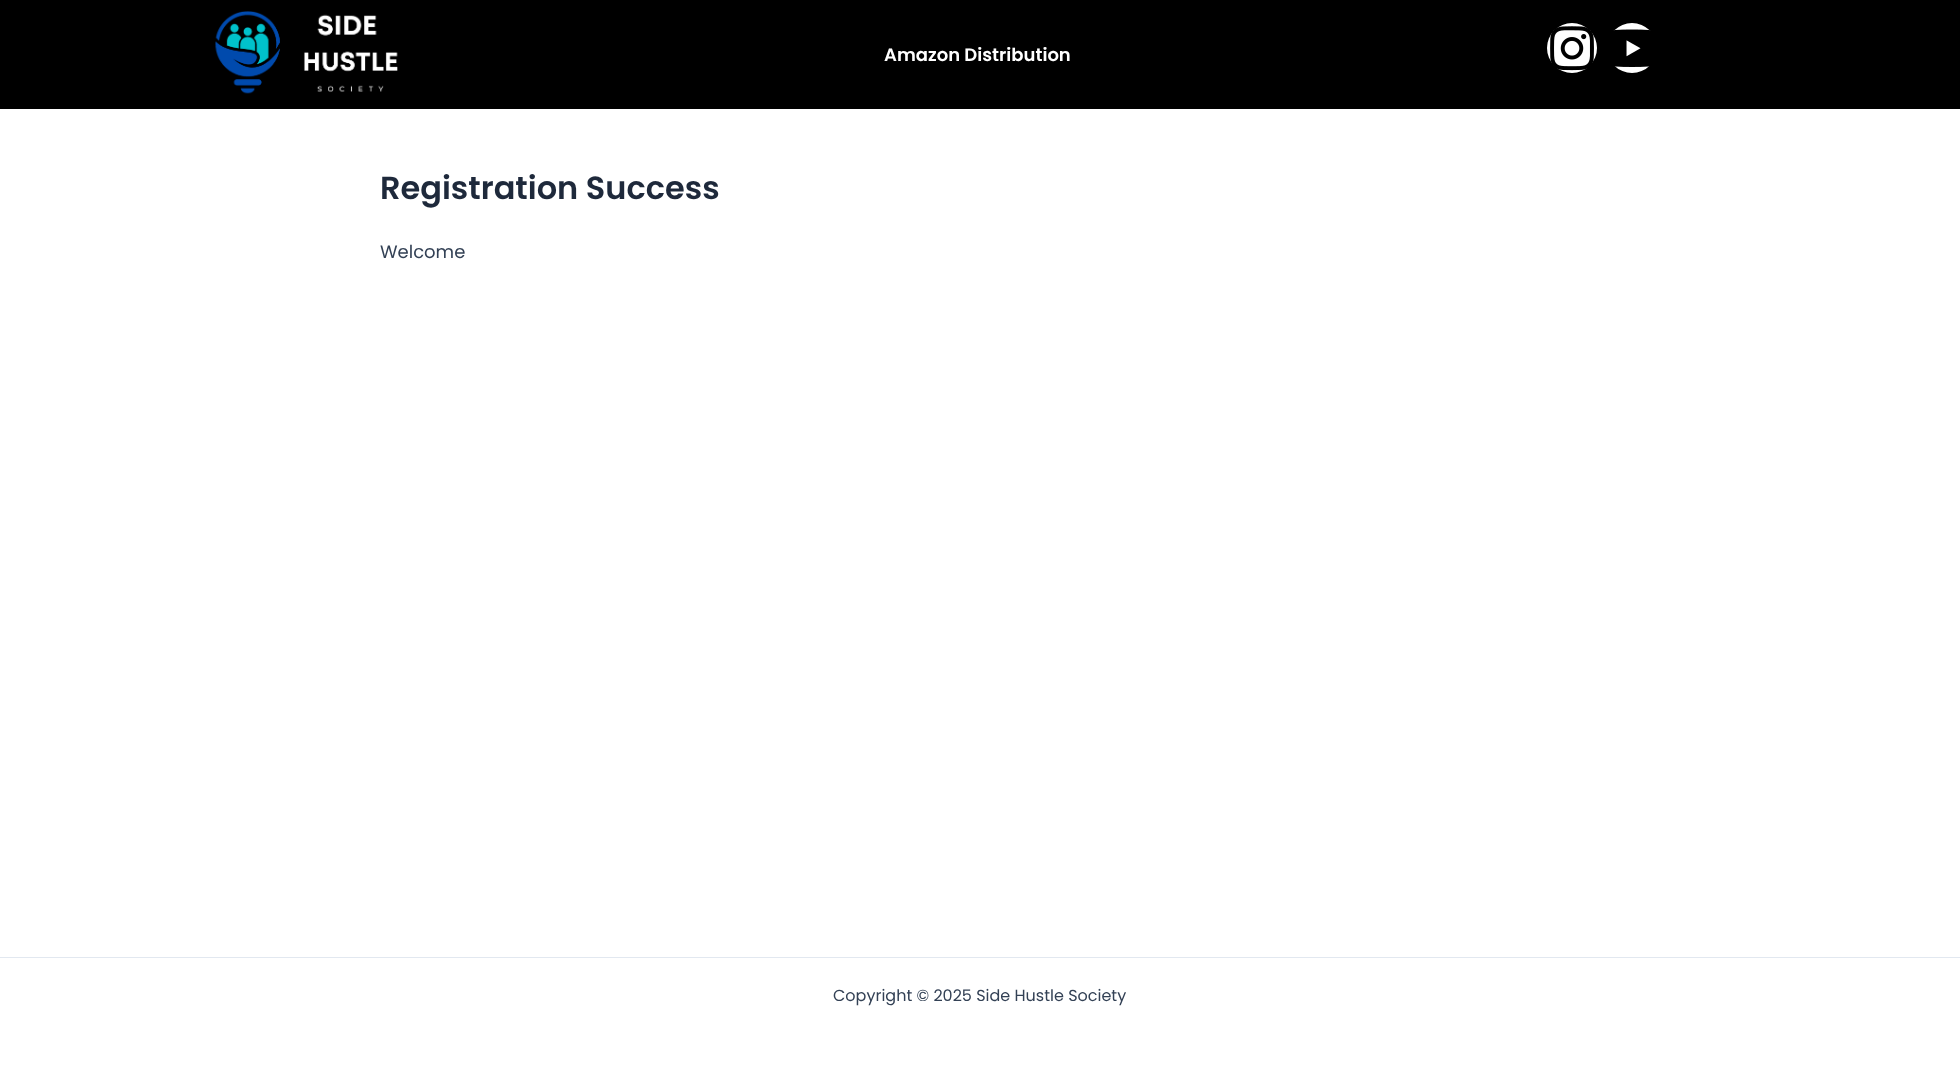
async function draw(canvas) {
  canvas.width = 1960
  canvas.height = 1078
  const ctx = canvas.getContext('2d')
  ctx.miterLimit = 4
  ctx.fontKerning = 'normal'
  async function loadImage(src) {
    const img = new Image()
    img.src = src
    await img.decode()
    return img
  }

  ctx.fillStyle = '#fff'
  ctx.fillRect(0, 0, 1960, 1078)
  ctx.fillStyle = '#000'
  ctx.fillRect(0, 0, 1960, 109)
  ctx.drawImage(await loadImage('image0.png'), 215, 11, 183, 83)
  ctx.font = '600 18px Poppins'
  ctx.fillStyle = '#fff'
  ctx.fillText('Amazon Distribution', 884, 61)
  ctx.beginPath()
  ctx.arc(1572, 48, 25, 0, 2 * Math.PI)
  ctx.fill()
  ctx.drawImage(await loadImage('image1.png'), 1550, 26, 44, 45)
  ctx.beginPath()
  ctx.arc(1632, 48, 25, 0, 2 * Math.PI)
  ctx.fill()
  ctx.drawImage(await loadImage('image2.png'), 1607, 29, 50, 38)
  ctx.font = '600 32px Poppins'
  ctx.fillStyle = '#1e293b'
  ctx.fillText('Registration Success', 380, 199)
  ctx.font = '18px Poppins'
  ctx.fillStyle = '#334155'
  ctx.fillText('Welcome', 380, 258)
  ctx.fillStyle = '#e2e8f0'
  ctx.fillRect(0, 957, 1960, 1)
  ctx.font = '16px Poppins'
  ctx.fillStyle = '#334155'
  ctx.fillText('Copyright © 2025 Side Hustle Society', 833, 1001)
}

draw(document.querySelector('canvas'))
